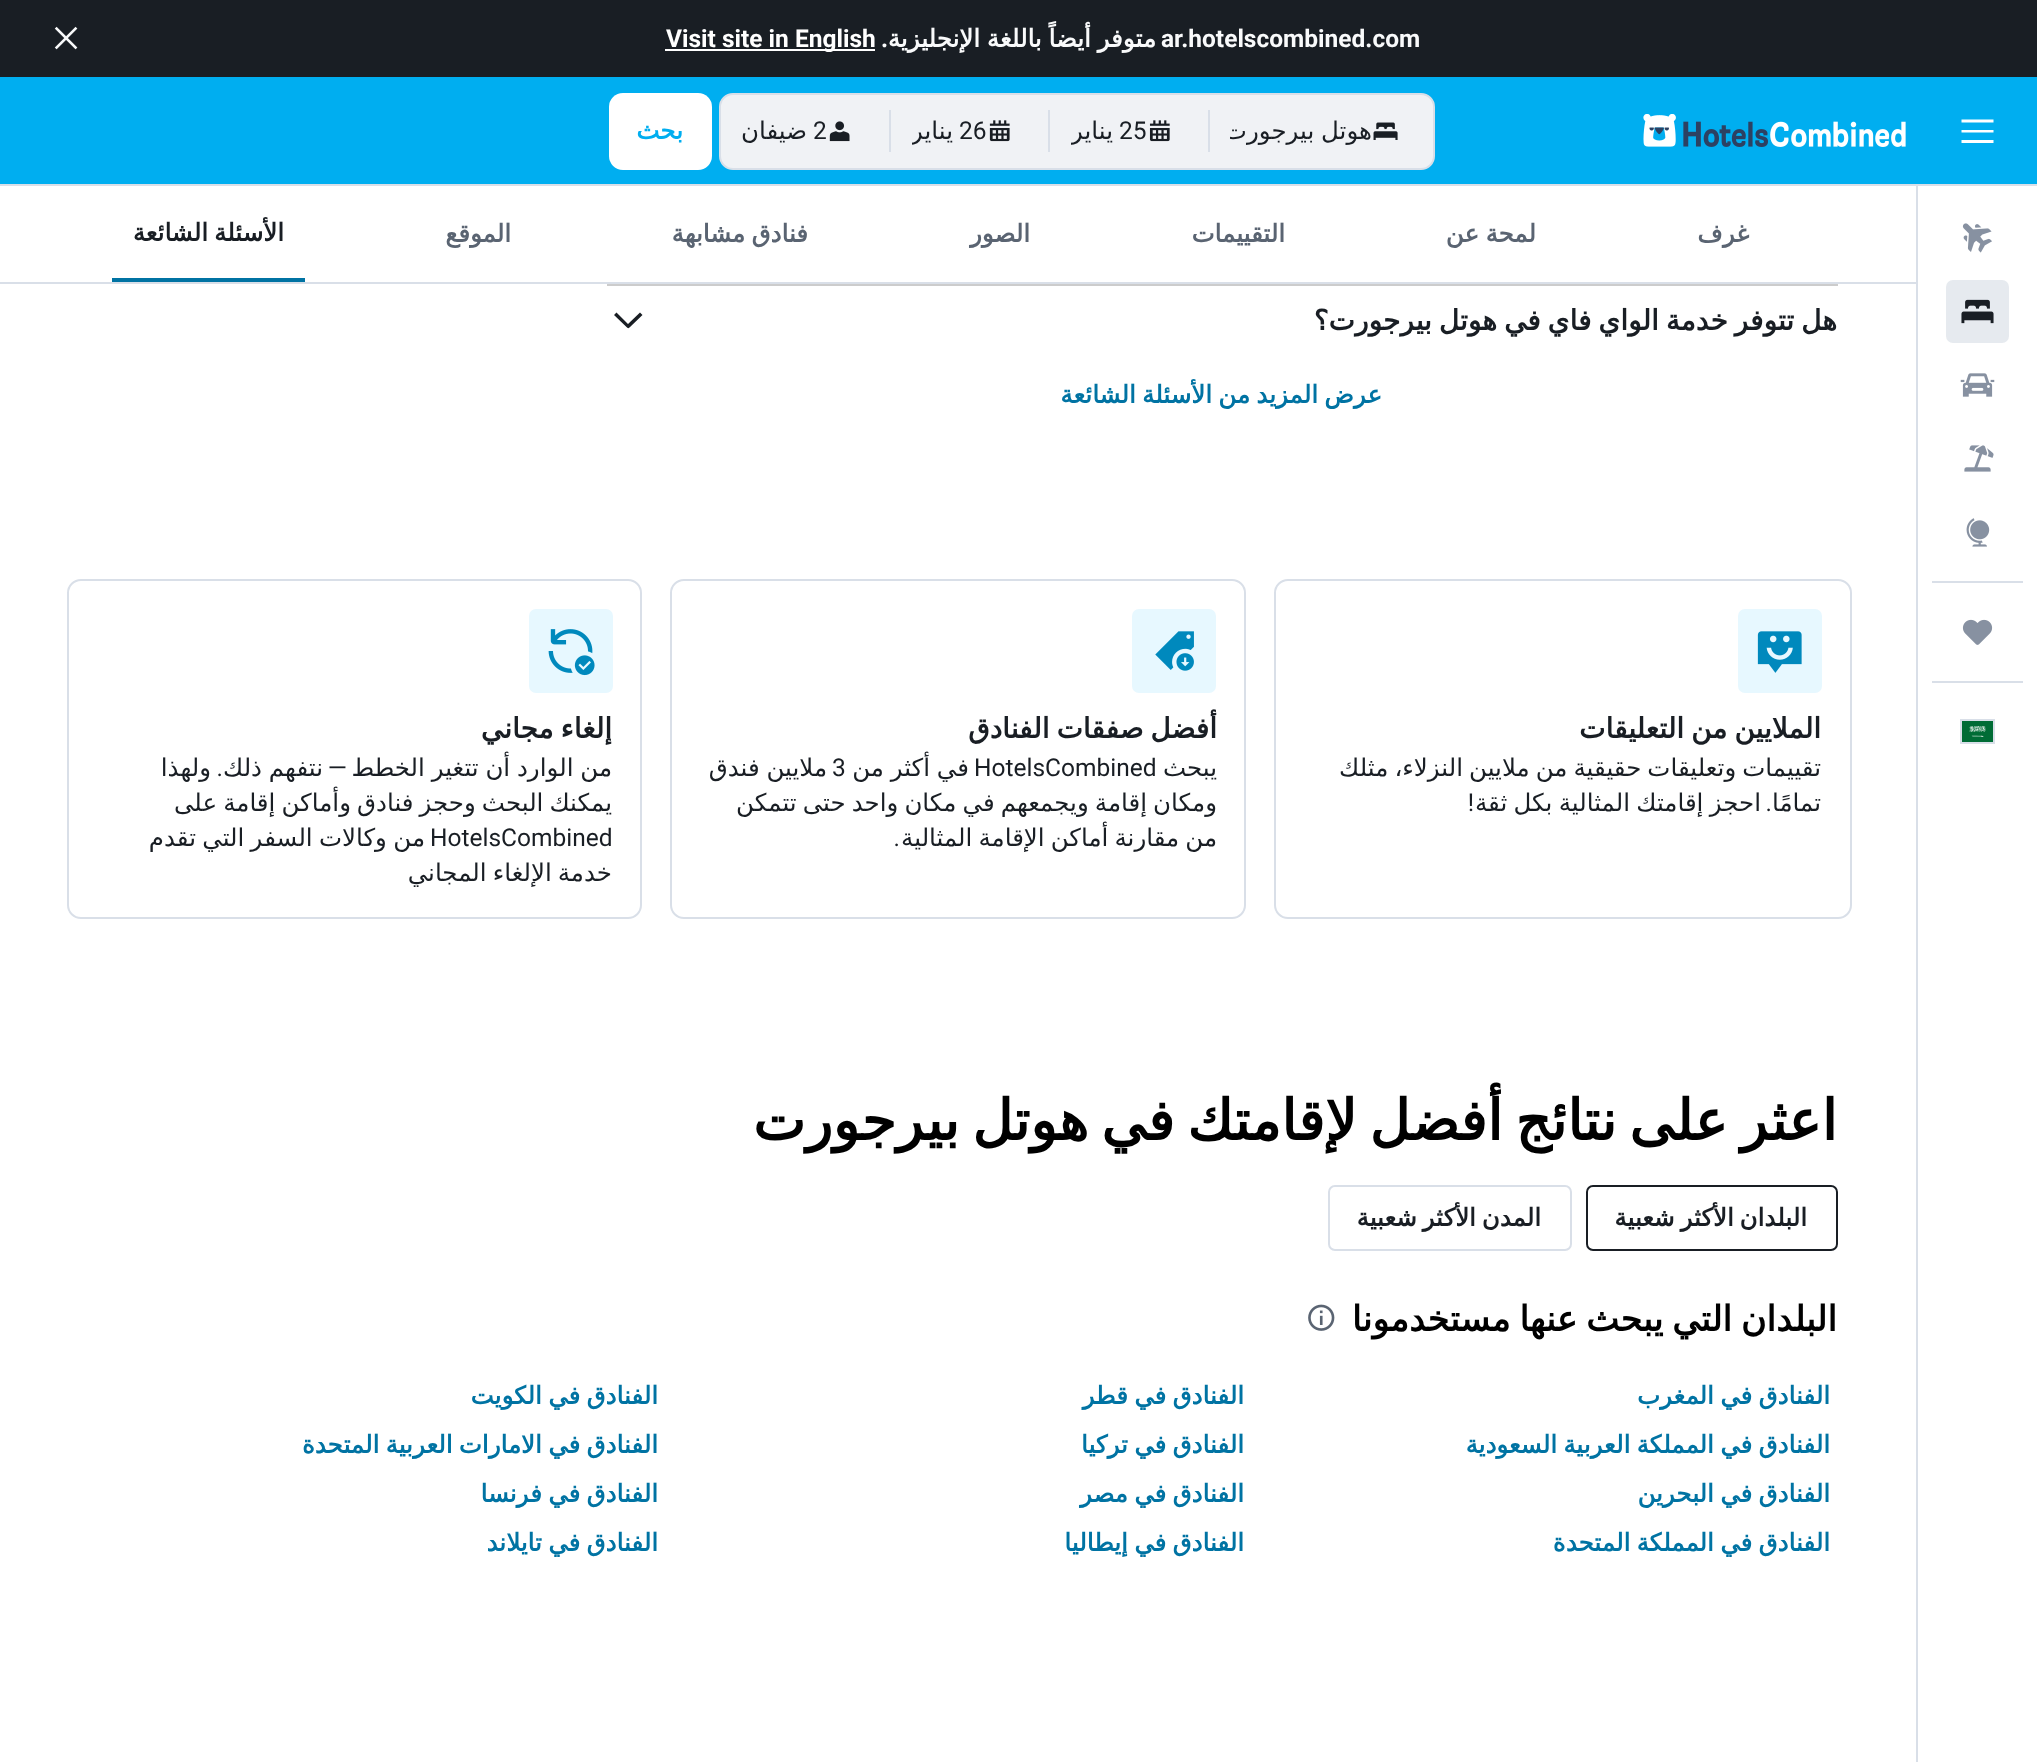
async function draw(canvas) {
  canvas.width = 2037
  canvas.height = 1762
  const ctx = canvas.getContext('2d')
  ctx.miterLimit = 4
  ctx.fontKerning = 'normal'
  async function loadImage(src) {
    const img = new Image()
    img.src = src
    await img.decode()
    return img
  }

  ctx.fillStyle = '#fff'
  ctx.fillRect(0, 0, 2037, 1762)
  ctx.fillStyle = '#191e24'
  ctx.fillRect(0, 0, 2037, 77)
  ctx.font = 'bold 24.5px Roboto'
  ctx.fillStyle = '#f9fafb'
  ctx.fillText('ar.hotelscombined.com', 1161, 47)
  ctx.wordSpacing = '-1px'
  ctx.direction = 'rtl'
  ctx.font = 'bold 24.5px DejaVu Sans'
  ctx.fillText('متوفر أيضاً باللغة الإنجليزية', 1156, 47)
  ctx.wordSpacing = '0px'
  ctx.font = 'bold 24.5px Roboto'
  ctx.fillText('.', 888, 47)
  ctx.fillStyle = '#fff'
  ctx.fillRect(665, 49, 210, 2)
  ctx.direction = 'ltr'
  ctx.fillText('Visit site in English', 666, 47)
  ctx.drawImage(await loadImage('image0.png'), 54, 26, 24, 24)
  ctx.fillStyle = '#d9dfe8'
  ctx.fillRect(0, 184, 2037, 2)
  ctx.fillStyle = '#00aef0'
  ctx.fillRect(0, 77, 2037, 107)
  ctx.fillStyle = '#fff'
  ctx.beginPath()
  ctx.moveTo(1993.5, 122.5)
  ctx.lineTo(1961.5, 122.5)
  ctx.lineTo(1961.5, 119.5)
  ctx.lineTo(1993.5, 119.5)
  ctx.closePath()
  ctx.moveTo(1993.5, 140)
  ctx.lineTo(1961.5, 140)
  ctx.lineTo(1961.5, 143)
  ctx.lineTo(1993.5, 143)
  ctx.closePath()
  ctx.moveTo(1993.5, 130)
  ctx.lineTo(1961.5, 130)
  ctx.lineTo(1961.5, 132.5)
  ctx.lineTo(1993.5, 132.5)
  ctx.closePath()
  ctx.fill()
  ctx.drawImage(await loadImage('image1.png'), 1643, 114, 263, 33)
  ctx.fillStyle = '#f0f2f5'
  ctx.beginPath()
  ctx.roundRect(720, 94, 714, 75, 13)
  ctx.fill()
  ctx.strokeStyle = '#d9dfe8'
  ctx.lineWidth = 2
  ctx.stroke()
  ctx.drawImage(await loadImage('image2.png'), 1373, 122, 25, 18)
  ctx.save()
  ctx.beginPath()
  ctx.rect(1230, 114, 142, 35)
  ctx.clip()
  ctx.wordSpacing = '-1px'
  ctx.direction = 'rtl'
  ctx.font = '24.5px DejaVu Sans'
  ctx.fillStyle = '#191e24'
  ctx.fillText('هوتل بيرجورت', 1372, 139)
  ctx.restore()
  ctx.fillStyle = '#d9dfe8'
  ctx.fillRect(1208, 110, 2, 42)
  ctx.drawImage(await loadImage('image3.png'), 1149, 120, 21, 22)
  ctx.font = '24.5px Roboto'
  ctx.fillStyle = '#191e24'
  ctx.fillText('25', 1119, 139)
  ctx.save()
  ctx.beginPath()
  ctx.rect(1071, 114, 75, 35)
  ctx.clip()
  ctx.direction = 'rtl'
  ctx.font = '24.5px DejaVu Sans'
  ctx.fillText('يناير', 1113, 139)
  ctx.restore()
  ctx.fillStyle = '#d9dfe8'
  ctx.fillRect(1048, 110, 2, 42)
  ctx.drawImage(await loadImage('image4.png'), 989, 120, 21, 22)
  ctx.fillStyle = '#191e24'
  ctx.fillText('26', 959, 139)
  ctx.save()
  ctx.beginPath()
  ctx.rect(912, 114, 75, 35)
  ctx.clip()
  ctx.direction = 'rtl'
  ctx.font = '24.5px DejaVu Sans'
  ctx.fillText('يناير', 953, 139)
  ctx.restore()
  ctx.fillStyle = '#d9dfe8'
  ctx.fillRect(889, 110, 2, 42)
  ctx.drawImage(await loadImage('image5.png'), 829, 121, 21, 21)
  ctx.fillStyle = '#191e24'
  ctx.fillText('2', 813, 139)
  ctx.direction = 'rtl'
  ctx.font = '24.5px DejaVu Sans'
  ctx.fillText('ضيفان', 807, 139)
  ctx.fillStyle = '#fff'
  ctx.beginPath()
  ctx.roundRect(609, 93, 103, 77, 14)
  ctx.fill()
  ctx.font = 'bold 24.5px DejaVu Sans'
  ctx.fillStyle = '#00aef0'
  ctx.fillText('بحث', 683, 139)
  ctx.fillStyle = '#d9dfe8'
  ctx.fillRect(1916, 186, 2, 1576)
  ctx.drawImage(await loadImage('image6.png'), 1962, 223, 30, 30)
  ctx.fillStyle = '#e6eaef'
  ctx.beginPath()
  ctx.roundRect(1946, 280, 63, 63, 7)
  ctx.fill()
  ctx.drawImage(await loadImage('image7.png'), 1961, 299, 33, 25)
  ctx.drawImage(await loadImage('image8.png'), 1960, 373, 35, 24)
  ctx.drawImage(await loadImage('image9.png'), 1964, 445, 30, 27)
  ctx.drawImage(await loadImage('image10.png'), 1966, 518, 24, 29)
  ctx.fillStyle = '#d9dfe8'
  ctx.fillRect(1932, 581, 91, 2)
  ctx.drawImage(await loadImage('image11.png'), 1962, 619, 31, 26)
  ctx.fillRect(1932, 681, 91, 2)
  ctx.strokeRect(1961, 720, 33, 23)
  ctx.drawImage(await loadImage('image12.png'), 1962, 721, 31, 21)
  ctx.fillRect(0, 282, 1916, 2)
  ctx.fillStyle = '#5a6472'
  ctx.fillText('غرف', 1749, 242)
  ctx.wordSpacing = '-1.5px'
  ctx.fillText('لمحة عن', 1536, 242)
  ctx.wordSpacing = '0px'
  ctx.fillText('التقييمات', 1285, 242)
  ctx.fillText('الصور', 1030, 242)
  ctx.wordSpacing = '-1.5px'
  ctx.fillText('فنادق مشابهة', 808, 242)
  ctx.wordSpacing = '0px'
  ctx.fillText('الموقع', 511, 242)
  ctx.fillStyle = '#0073a3'
  ctx.fillRect(112, 278, 193, 4)
  ctx.fillStyle = '#191e24'
  ctx.fillText('الأسئلة', 284, 241)
  ctx.fillText('الشائعة', 208, 241)
  ctx.fillStyle = '#ccc'
  ctx.fillRect(607, 284, 1231, 2)
  ctx.wordSpacing = '-2px'
  ctx.font = 'bold 28px DejaVu Sans'
  ctx.fillStyle = '#191e24'
  ctx.fillText('هل تتوفر خدمة الواي فاي في هوتل بيرجورت؟', 1837, 330)
  ctx.beginPath()
  ctx.moveTo(642.5, 315)
  ctx.lineTo(630, 327)
  ctx.bezierCurveTo(629, 328.5, 627.5, 328.5, 626.5, 327)
  ctx.lineTo(614, 315)
  ctx.lineTo(616.5, 312.5)
  ctx.lineTo(628, 324)
  ctx.lineTo(640, 312.5)
  ctx.closePath()
  ctx.fill()
  ctx.save()
  ctx.beginPath()
  ctx.rect(1061, 376, 322, 35)
  ctx.clip()
  ctx.wordSpacing = '-1.5px'
  ctx.font = 'bold 24.5px DejaVu Sans'
  ctx.fillStyle = '#0073a3'
  ctx.fillText('عرض المزيد من الأسئلة الشائعة', 1382, 403)
  ctx.restore()
  ctx.beginPath()
  ctx.roundRect(1275, 580, 576, 338, 13)
  ctx.stroke()
  ctx.fillStyle = '#e7f8ff'
  ctx.beginPath()
  ctx.roundRect(1738, 609, 84, 84, 7)
  ctx.fill()
  ctx.drawImage(await loadImage('image13.png'), 1757, 631, 45, 42)
  ctx.fillStyle = '#191e24'
  ctx.fillText('الملايين من التعليقات', 1821, 738)
  ctx.wordSpacing = '-1.75px'
  ctx.font = '24.5px DejaVu Sans'
  ctx.fillText('تقييمات وتعليقات حقيقية من ملايين النزلاء، مثلك', 1821, 776)
  ctx.wordSpacing = '0px'
  ctx.fillText('تمامًا', 1821, 811)
  ctx.font = '24.5px Roboto'
  ctx.fillText('.', 1772, 811)
  ctx.wordSpacing = '-1.5px'
  ctx.font = '24.5px DejaVu Sans'
  ctx.fillText('احجز إقامتك المثالية بكل ثقة', 1761, 811)
  ctx.wordSpacing = '0px'
  ctx.font = '24.5px Roboto'
  ctx.fillText('!', 1474, 811)
  ctx.beginPath()
  ctx.roundRect(671, 580, 574, 338, 13)
  ctx.stroke()
  ctx.fillStyle = '#e7f8ff'
  ctx.beginPath()
  ctx.roundRect(1132, 609, 84, 84, 7)
  ctx.fill()
  ctx.drawImage(await loadImage('image14.png'), 1155, 631, 39, 40)
  ctx.wordSpacing = '-2px'
  ctx.font = 'bold 28px DejaVu Sans'
  ctx.fillStyle = '#191e24'
  ctx.fillText('أفضل صفقات الفنادق', 1217, 738)
  ctx.wordSpacing = '0px'
  ctx.font = '24.5px DejaVu Sans'
  ctx.fillText('يبحث', 1217, 776)
  ctx.direction = 'ltr'
  ctx.font = '24.5px Roboto'
  ctx.fillText('HotelsCombined', 974, 776)
  ctx.wordSpacing = '-1px'
  ctx.direction = 'rtl'
  ctx.font = '24.5px DejaVu Sans'
  ctx.fillText('في أكثر من', 969, 776)
  ctx.wordSpacing = '0px'
  ctx.direction = 'ltr'
  ctx.font = '24.5px Roboto'
  ctx.fillText('3', 832, 776)
  ctx.wordSpacing = '-1px'
  ctx.direction = 'rtl'
  ctx.font = '24.5px DejaVu Sans'
  ctx.fillText('ملايين فندق', 827, 776)
  ctx.wordSpacing = '-1.75px'
  ctx.fillText('ومكان إقامة ويجمعهم في مكان واحد حتى تتمكن', 1217, 811)
  ctx.fillText('من مقارنة أماكن الإقامة المثالية', 1217, 846)
  ctx.wordSpacing = '0px'
  ctx.font = '24.5px Roboto'
  ctx.fillText('.', 900, 846)
  ctx.beginPath()
  ctx.roundRect(68, 580, 573, 338, 13)
  ctx.stroke()
  ctx.fillStyle = '#e7f8ff'
  ctx.beginPath()
  ctx.roundRect(529, 609, 84, 84, 7)
  ctx.fill()
  ctx.drawImage(await loadImage('image15.png'), 548, 629, 47, 47)
  ctx.wordSpacing = '-2px'
  ctx.font = 'bold 28px DejaVu Sans'
  ctx.fillStyle = '#191e24'
  ctx.fillText('إلغاء مجاني', 612, 738)
  ctx.wordSpacing = '-1px'
  ctx.font = '24.5px DejaVu Sans'
  ctx.fillText('من الوارد أن تتغير الخطط', 612, 776)
  ctx.wordSpacing = '0px'
  ctx.font = '24.5px Roboto'
  ctx.fillText('—', 347, 776)
  ctx.wordSpacing = '-1px'
  ctx.font = '24.5px DejaVu Sans'
  ctx.fillText('نتفهم ذلك', 323, 776)
  ctx.wordSpacing = '0px'
  ctx.fillText('ولهذا', 211, 776)
  ctx.font = '24.5px Roboto'
  ctx.fillText('.', 223, 776)
  ctx.wordSpacing = '-1.75px'
  ctx.font = '24.5px DejaVu Sans'
  ctx.fillText('يمكنك البحث وحجز فنادق وأماكن إقامة على', 612, 811)
  ctx.wordSpacing = '0px'
  ctx.direction = 'ltr'
  ctx.font = '24.5px Roboto'
  ctx.fillText('HotelsCombined', 430, 846)
  ctx.wordSpacing = '-1.5px'
  ctx.direction = 'rtl'
  ctx.font = '24.5px DejaVu Sans'
  ctx.fillText('من وكالات السفر التي تقدم', 425, 846)
  ctx.wordSpacing = '-1.75px'
  ctx.fillText('خدمة الإلغاء المجاني', 612, 881)
  ctx.wordSpacing = '-5.25px'
  ctx.font = 'bold 56px DejaVu Sans'
  ctx.fillStyle = '#000'
  ctx.fillText('اعثر على نتائج أفضل لإقامتك في هوتل بيرجورت', 1837, 1140)
  ctx.beginPath()
  ctx.roundRect(1587, 1186, 250, 64, 6)
  ctx.strokeStyle = '#191e24'
  ctx.stroke()
  ctx.wordSpacing = '-2px'
  ctx.font = 'bold 24.5px DejaVu Sans'
  ctx.fillStyle = '#191e24'
  ctx.fillText('البلدان الأكثر شعبية', 1807, 1226)
  ctx.beginPath()
  ctx.roundRect(1329, 1186, 242, 64, 6)
  ctx.strokeStyle = '#d9dfe8'
  ctx.stroke()
  ctx.fillText('المدن الأكثر شعبية', 1541, 1226)
  ctx.wordSpacing = '-2.5px'
  ctx.font = 'bold 35px DejaVu Sans'
  ctx.fillStyle = '#000'
  ctx.fillText('البلدان التي يبحث عنها مستخدمونا', 1837, 1331)
  ctx.drawImage(await loadImage('image16.png'), 1308, 1304, 27, 27)
  ctx.wordSpacing = '-1.5px'
  ctx.font = 'bold 24.5px DejaVu Sans'
  ctx.fillStyle = '#0073a3'
  ctx.fillText('الفنادق في المغرب', 1830, 1404)
  ctx.fillText('الفنادق في قطر', 1244, 1404)
  ctx.fillText('الفنادق في الكويت', 658, 1404)
  ctx.fillText('الفنادق في المملكة العربية السعودية', 1830, 1453)
  ctx.fillText('الفنادق في تركيا', 1244, 1453)
  ctx.fillText('الفنادق في الامارات العربية المتحدة', 658, 1453)
  ctx.fillText('الفنادق في البحرين', 1830, 1502)
  ctx.fillText('الفنادق في مصر', 1244, 1502)
  ctx.fillText('الفنادق في فرنسا', 658, 1502)
  ctx.fillText('الفنادق في المملكة المتحدة', 1830, 1551)
  ctx.fillText('الفنادق في إيطاليا', 1244, 1551)
  ctx.fillText('الفنادق في تايلاند', 658, 1551)
}

draw(document.querySelector('canvas'))
